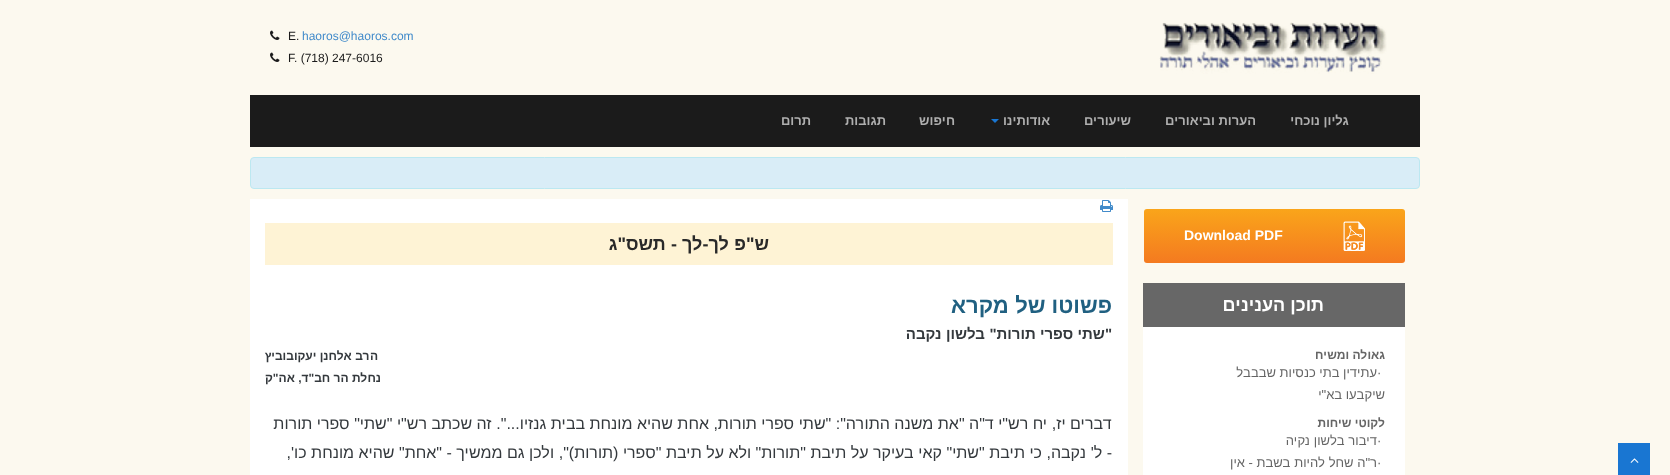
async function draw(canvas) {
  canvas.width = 1670
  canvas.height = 475
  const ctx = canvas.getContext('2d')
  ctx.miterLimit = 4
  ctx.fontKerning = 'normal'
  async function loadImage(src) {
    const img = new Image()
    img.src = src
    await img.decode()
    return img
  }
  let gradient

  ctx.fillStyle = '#fcf9ef'
  ctx.fillRect(0, 0, 1670, 475)
  ctx.fillStyle = '#1976d2'
  ctx.fillRect(1618, 443, 32, 32)
  ctx.drawImage(await loadImage('image0.png'), 1630, 458, 9, 5)
  ctx.drawImage(await loadImage('image1.png'), 1159, 22, 228, 52)
  ctx.font = '12px Arimo'
  ctx.fillStyle = '#428bca'
  ctx.fillText('haoros@haoros.com', 302, 40)
  ctx.fillStyle = '#1b1b1b'
  ctx.fillText('E.', 288, 40)
  ctx.drawImage(await loadImage('image2.png'), 270, 30, 10, 10)
  ctx.fillText('F. (718) 247-6016', 288, 62)
  ctx.drawImage(await loadImage('image2.png'), 270, 52, 10, 10)
  ctx.fillRect(250, 95, 1170, 52)
  ctx.direction = 'rtl'
  ctx.font = 'bold 13px Arimo'
  ctx.fillStyle = '#afafaf'
  ctx.fillText('גליון נוכחי', 1349, 125)
  ctx.fillText('הערות וביאורים', 1256, 125)
  ctx.fillText('שיעורים', 1131, 125)
  ctx.fillText('אודותינו', 1050, 125)
  ctx.fillStyle = '#1976d2'
  ctx.beginPath()
  ctx.moveTo(991, 119)
  ctx.lineTo(999, 119)
  ctx.lineTo(995, 123)
  ctx.closePath()
  ctx.fill()
  ctx.fillStyle = '#afafaf'
  ctx.fillText('חיפוש', 955, 125)
  ctx.fillText('תגובות', 886, 125)
  ctx.fillText('תרום', 811, 125)
  ctx.fillStyle = '#d9edf7'
  ctx.beginPath()
  ctx.roundRect(250.5, 157.5, 1169, 31, 3.5)
  ctx.fill()
  ctx.strokeStyle = '#bce8f1'
  ctx.stroke()
  gradient = ctx.createLinearGradient(1144, 209, 1144, 263)
  gradient.addColorStop(0, '#faa51a')
  gradient.addColorStop(1, '#f47a20')
  ctx.fillStyle = gradient
  ctx.beginPath()
  ctx.roundRect(1144, 209, 261, 54, 3)
  ctx.fill()
  ctx.drawImage(await loadImage('image3.png'), 1343, 221, 22, 30)
  ctx.direction = 'ltr'
  ctx.font = 'bold 14px Arimo'
  ctx.fillStyle = '#fff'
  ctx.fillText('Download PDF', 1184, 240)
  ctx.fillStyle = '#676767'
  ctx.fillRect(1143, 283, 262, 44)
  ctx.direction = 'rtl'
  ctx.font = 'bold 18px Arimo'
  ctx.fillStyle = '#fff'
  ctx.fillText('תוכן הענינים', 1324, 311)
  ctx.fillRect(1143, 327, 262, 148)
  ctx.font = 'bold 12px Arimo'
  ctx.fillStyle = '#656565'
  ctx.fillText('גאולה ומשיח', 1385, 359)
  ctx.direction = 'ltr'
  ctx.font = '13px Arimo'
  ctx.fillText('·', 1377, 377)
  ctx.direction = 'rtl'
  ctx.fillText('עתידין בתי כנסיות שבבבל', 1377, 377)
  ctx.fillText('שיקבעו בא"י', 1385, 399)
  ctx.font = 'bold 12px Arimo'
  ctx.fillText('לקוטי שיחות', 1385, 427)
  ctx.direction = 'ltr'
  ctx.font = '13px Arimo'
  ctx.fillText('·', 1377, 445)
  ctx.direction = 'rtl'
  ctx.fillText('דיבור בלשון נקיה', 1377, 445)
  ctx.direction = 'ltr'
  ctx.fillText('·', 1377, 467)
  ctx.direction = 'rtl'
  ctx.fillText('ר"ה שחל להיות בשבת - אין', 1377, 467)
  ctx.fillStyle = '#fff'
  ctx.fillRect(250, 199, 878, 276)
  ctx.drawImage(await loadImage('image4.png'), 1100, 200, 13, 12)
  ctx.fillStyle = '#fef3d5'
  ctx.fillRect(265, 223, 848, 42)
  ctx.font = 'bold 18px Arimo'
  ctx.fillStyle = '#292929'
  ctx.fillText('ש"פ לך-לך - תשס"ג', 769, 250)
  ctx.font = 'bold 22px Arimo'
  ctx.fillStyle = '#206081'
  ctx.fillText('פשוטו של מקרא', 1112, 313)
  ctx.font = 'bold 15px Arimo'
  ctx.fillStyle = '#34393d'
  ctx.fillText('"שתי ספרי תורות" בלשון נקבה', 1112, 339)
  ctx.font = 'bold 12px Arimo'
  ctx.fillText('הרב אלחנן יעקובוביץ', 378, 360)
  ctx.fillText('נחלת הר חב"ד, אה"ק', 381, 382)
  ctx.font = '16px Arimo'
  ctx.fillText('דברים יז, יח רש"י ד"ה "את משנה התורה": "שתי ספרי תורות, אחת שהיא מונחת בבית גנזיו...". זה שכתב רש"י "שתי" ספרי תורות', 1112, 429)
  ctx.fillText('- ל\' נקבה, כי תיבת "שתי" קאי בעיקר על תיבת "תורות" ולא על תיבת "ספרי (תורות)", ולכן גם ממשיך - "אחת" שהיא מונחת כו\',', 1112, 458)
}

draw(document.querySelector('canvas'))
